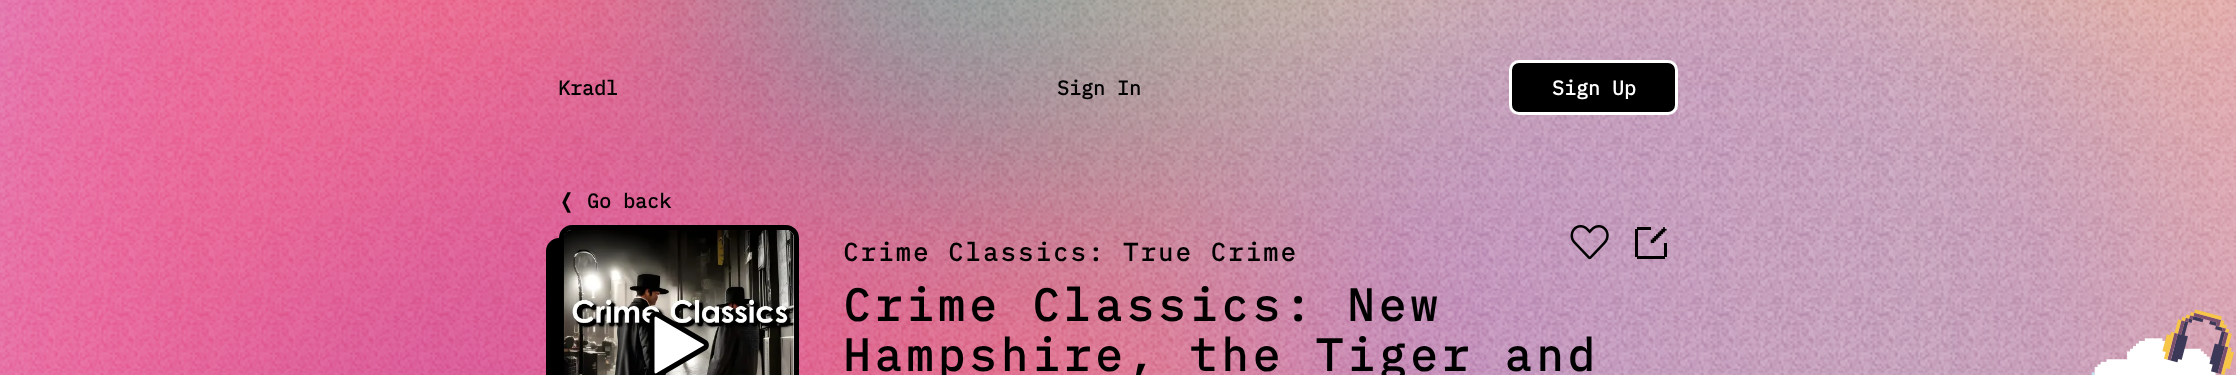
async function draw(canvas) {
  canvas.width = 2236
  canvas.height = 375
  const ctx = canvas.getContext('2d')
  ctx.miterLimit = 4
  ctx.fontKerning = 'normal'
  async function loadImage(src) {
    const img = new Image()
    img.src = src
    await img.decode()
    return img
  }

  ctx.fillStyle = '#fff'
  ctx.fillRect(0, 0, 2236, 375)
  ctx.drawImage(await loadImage('image0.png'), 0, 0, 2236, 375)
  ctx.drawImage(await loadImage('image1.png'), 2091, 309, 143, 66)
  ctx.font = 'bold 20px IBM Plex Mono'
  ctx.fillStyle = '#000'
  ctx.fillText('Kradl', 558, 95)
  ctx.fillText('Sign In', 1057, 95)
  ctx.beginPath()
  ctx.roundRect(1510.5, 61.5, 166, 52, 8.5)
  ctx.fill()
  ctx.strokeStyle = '#fff'
  ctx.lineWidth = 3
  ctx.stroke()
  ctx.fillStyle = '#fff'
  ctx.fillText('Sign Up', 1552, 95)
  ctx.font = 'bold 20px DejaVu Sans'
  ctx.fillStyle = '#000'
  ctx.fillText('❬', 558, 208)
  ctx.font = 'bold 20px IBM Plex Mono'
  ctx.fillText('Go back', 587, 208)
  ctx.beginPath()
  ctx.moveTo(559, 238)
  ctx.bezierCurveTo(552, 238, 546, 244, 546, 251)
  ctx.lineTo(546, 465)
  ctx.bezierCurveTo(546, 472, 552, 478, 559, 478)
  ctx.lineTo(773, 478)
  ctx.bezierCurveTo(780, 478, 786, 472, 786, 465)
  ctx.lineTo(571, 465)
  ctx.bezierCurveTo(564, 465, 559, 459, 559, 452)
  ctx.closePath()
  ctx.fill()
  ctx.fillStyle = '#fff'
  ctx.beginPath()
  ctx.roundRect(561.5, 227.5, 235, 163, 10.5)
  ctx.fill()
  ctx.strokeStyle = '#000'
  ctx.lineWidth = 5
  ctx.stroke()
  ctx.drawImage(await loadImage('image2.png'), 563, 230, 231, 145)
  ctx.beginPath()
  ctx.moveTo(704, 348)
  ctx.lineTo(657, 375)
  ctx.bezierCurveTo(655, 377, 652, 375, 652, 372)
  ctx.lineTo(652, 318)
  ctx.bezierCurveTo(652, 315, 655, 313, 658, 315)
  ctx.lineTo(704, 342)
  ctx.bezierCurveTo(707, 343, 707, 347, 704, 348)
  ctx.closePath()
  ctx.fill()
  ctx.beginPath()
  ctx.moveTo(704.5, 348)
  ctx.lineTo(657.5, 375.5)
  ctx.bezierCurveTo(655, 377, 652, 375, 652, 372)
  ctx.lineTo(652, 318)
  ctx.bezierCurveTo(652, 315, 655, 313, 657.5, 314.5)
  ctx.lineTo(704.5, 342)
  ctx.bezierCurveTo(707, 343, 707, 347, 704.5, 348)
  ctx.closePath()
  ctx.stroke()
  ctx.letterSpacing = '2.5px'
  ctx.font = 'bold 25px IBM Plex Mono'
  ctx.fillStyle = '#000'
  ctx.fillText('Crime Classics: True Crime', 843, 261)
  ctx.drawImage(await loadImage('image3.png'), 1570, 225, 39, 35)
  ctx.drawImage(await loadImage('image4.png'), 1635, 227, 32, 32)
  ctx.letterSpacing = '4.5px'
  ctx.font = 'bold 45px IBM Plex Mono'
  ctx.fillText('Crime Classics: New', 843, 321)
  ctx.fillText('Hampshire, the Tiger and', 843, 371)
}

draw(document.querySelector('canvas'))
